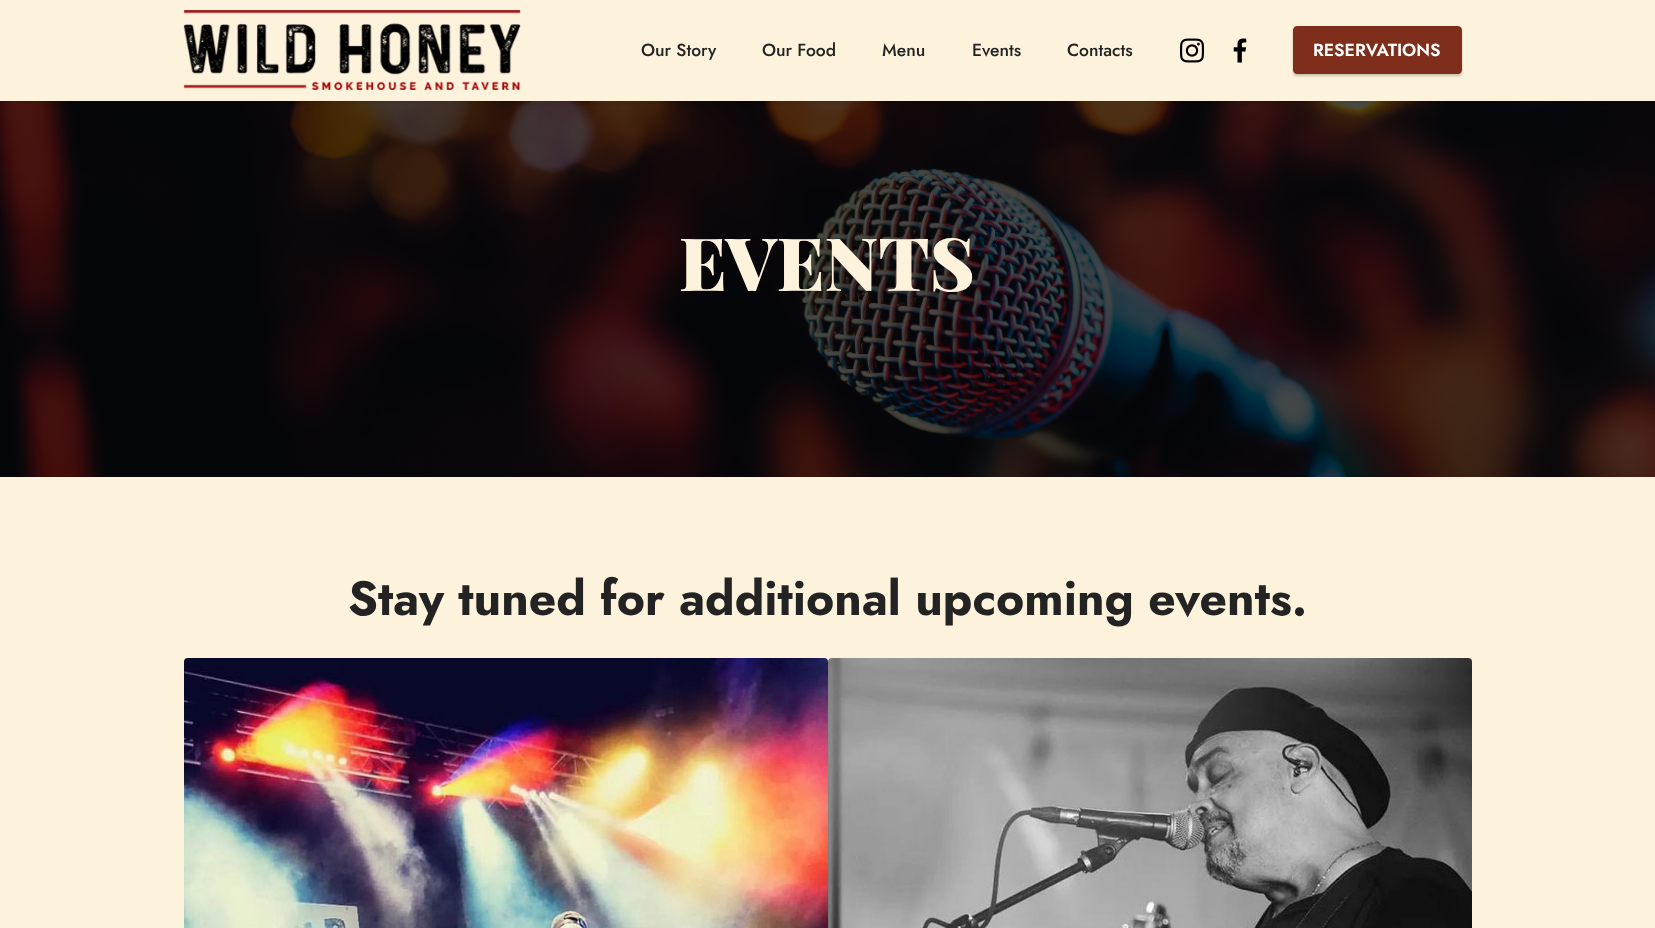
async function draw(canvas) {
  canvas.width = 1655
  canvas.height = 928
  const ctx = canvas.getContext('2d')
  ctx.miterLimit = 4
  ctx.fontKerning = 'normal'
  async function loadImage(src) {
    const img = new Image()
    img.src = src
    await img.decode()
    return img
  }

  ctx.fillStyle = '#fff'
  ctx.fillRect(0, 0, 1655, 928)
  ctx.drawImage(await loadImage('image3.png'), 0, 101, 1655, 376)
  ctx.fillStyle = '#0000001a'
  ctx.filter = 'blur(1.5px)'
  ctx.beginPath()
  ctx.rect(0, 1, 1655, 101)
  ctx.fill()
  ctx.filter = 'none'
  ctx.fillStyle = '#fdf2dc'
  ctx.fillRect(0, 0, 1655, 101)
  ctx.drawImage(await loadImage('image0.png'), 183, 10, 338, 80)
  ctx.font = '500 17.5px Jost'
  ctx.fillStyle = '#232323'
  ctx.fillText('Our Story', 641, 56)
  ctx.fillText('Our Food', 762, 56)
  ctx.fillText('Menu', 882, 56)
  ctx.fillText('Events', 972, 56)
  ctx.fillText('Contacts', 1067, 56)
  ctx.drawImage(await loadImage('image1.png'), 1180, 38, 24, 25)
  ctx.drawImage(await loadImage('image2.png'), 1233, 38, 14, 25)
  ctx.fillStyle = '#00000033'
  ctx.filter = 'blur(1px)'
  ctx.beginPath()
  ctx.roundRect(1293, 28, 169, 48, 4)
  ctx.fill()
  ctx.filter = 'none'
  ctx.fillStyle = '#7f2e1b'
  ctx.beginPath()
  ctx.roundRect(1293.5, 26.5, 168, 47, 3.5)
  ctx.fill()
  ctx.strokeStyle = '#7f2e1b'
  ctx.stroke()
  ctx.font = '600 17.5px Jost'
  ctx.fillStyle = '#fff'
  ctx.fillText('RESERVATIONS', 1313, 56)
  ctx.font = '900 73.5px Playfair Display'
  ctx.fillStyle = '#fdf2dc'
  ctx.fillText('EVENTS', 679, 291)
  ctx.fillRect(0, 477, 1655, 451)
  ctx.font = 'bold 48px Jost'
  ctx.fillStyle = '#232323'
  ctx.fillText('Stay tuned for additional upcoming events.', 348, 615)
  ctx.drawImage(await loadImage('image4.png'), 184, 658, 644, 270)
  ctx.drawImage(await loadImage('image5.png'), 828, 658, 644, 270)
}

draw(document.querySelector('canvas'))
